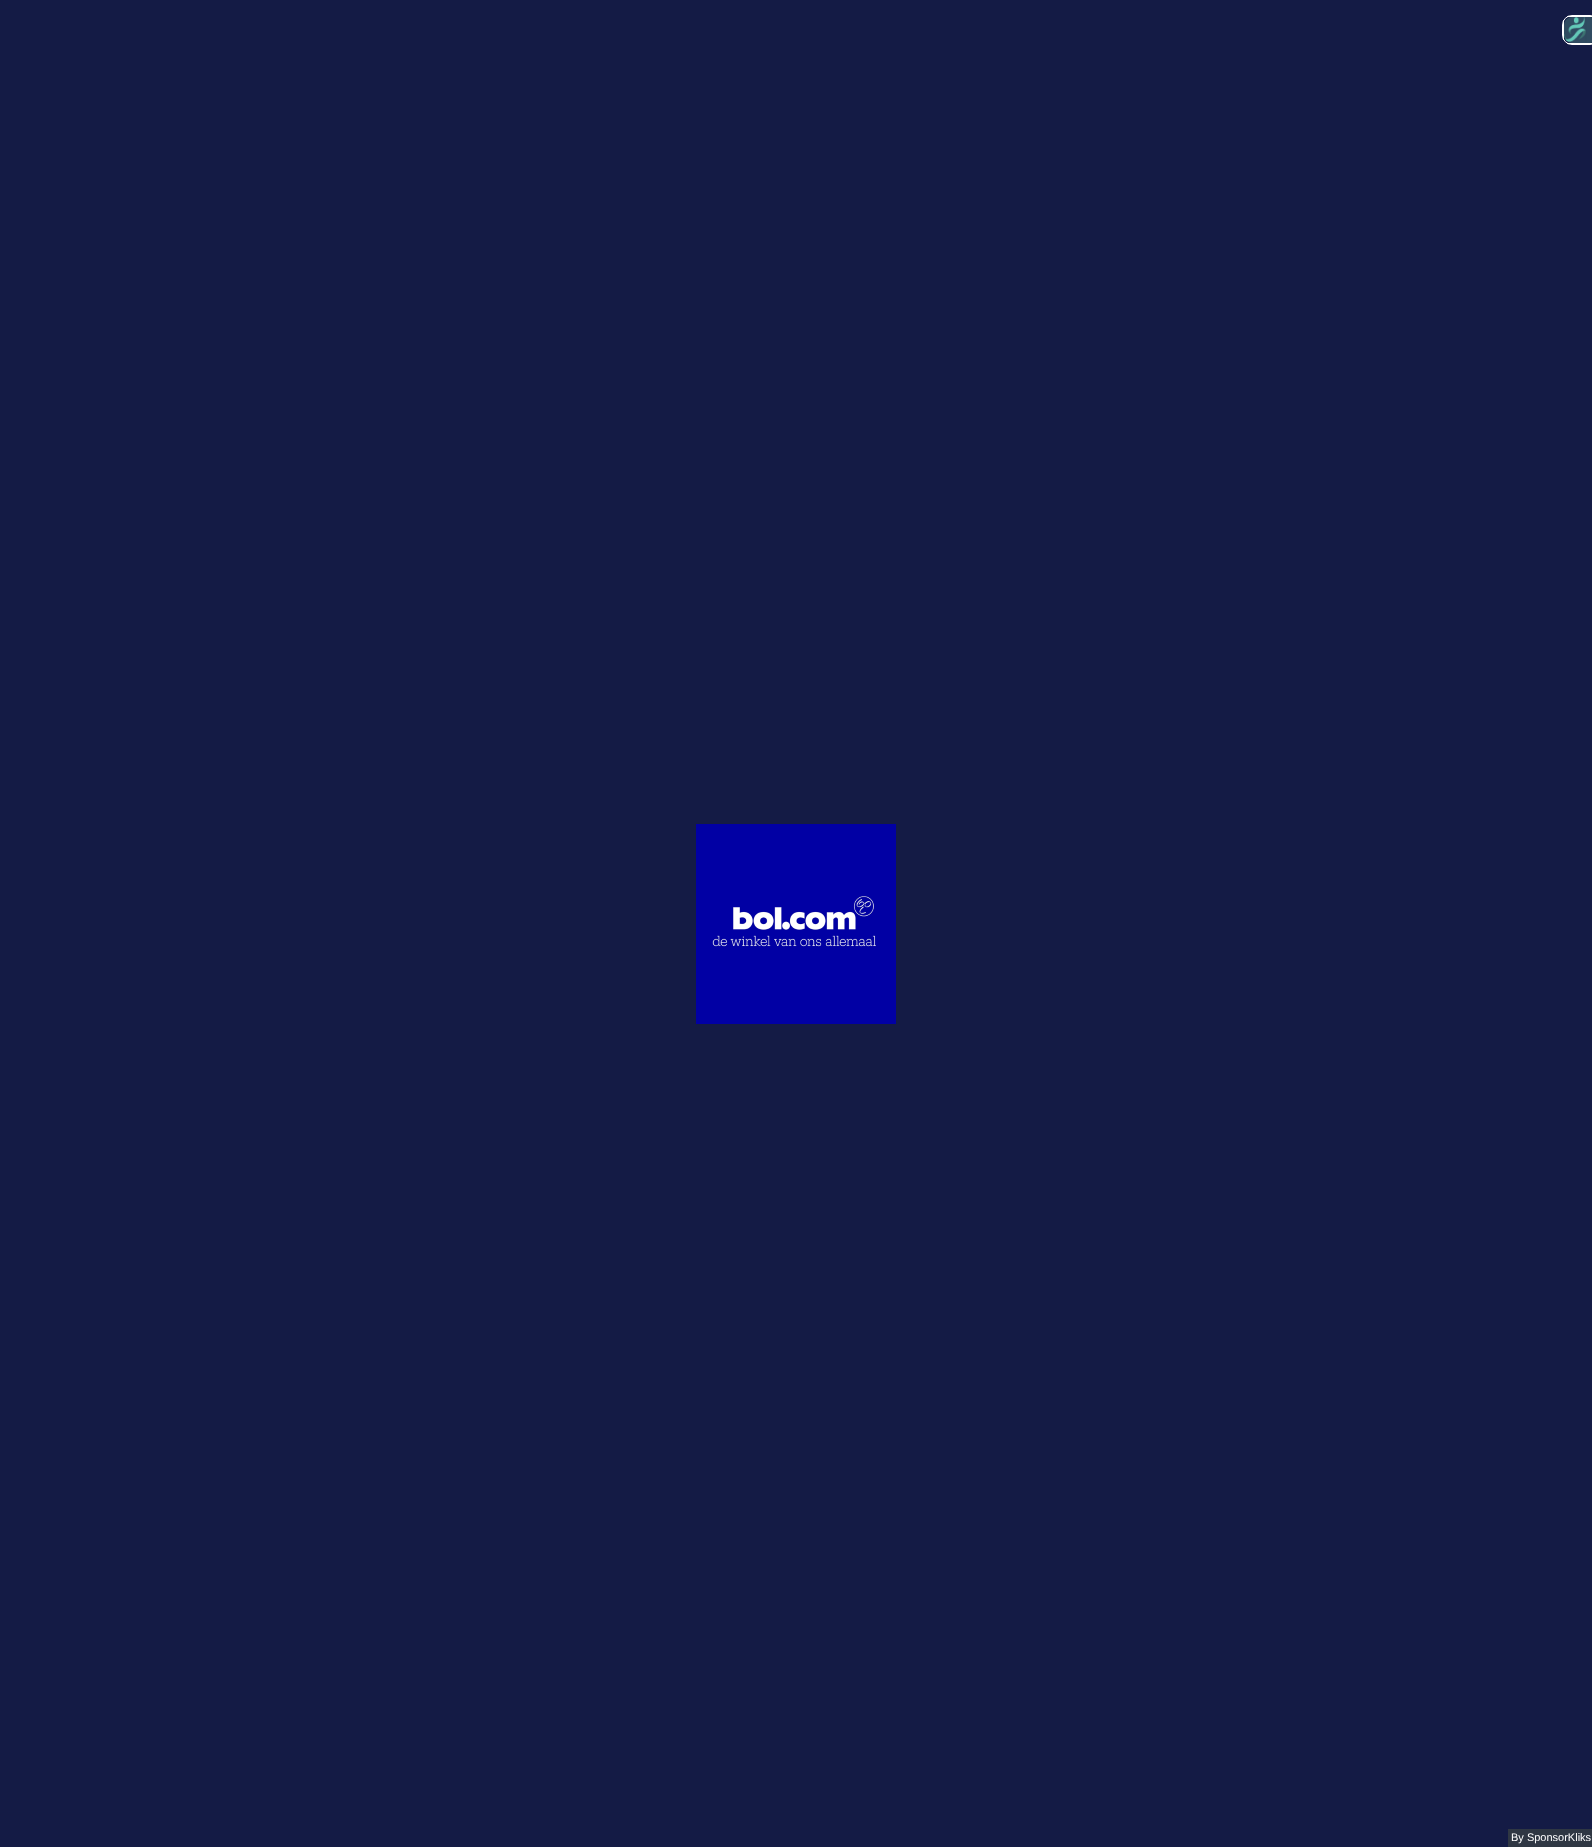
async function draw(canvas) {
  canvas.width = 1592
  canvas.height = 1847
  const ctx = canvas.getContext('2d')
  ctx.miterLimit = 4
  ctx.fontKerning = 'normal'
  async function loadImage(src) {
    const img = new Image()
    img.src = src
    await img.decode()
    return img
  }

  ctx.fillStyle = '#141b45'
  ctx.fillRect(0, 0, 1592, 1847)
  ctx.beginPath()
  ctx.roundRect(1562.5, 15.5, 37, 29, 9.5)
  ctx.strokeStyle = '#fff'
  ctx.stroke()
  ctx.fillStyle = '#fff'
  ctx.fillRect(1567, 16, 25, 1)
  ctx.fillRect(1567, 43, 25, 1)
  ctx.fillRect(1563, 20, 1, 20)
  ctx.drawImage(await loadImage('image0.png'), 1564, 17, 28, 26)
  ctx.drawImage(await loadImage('image1.png'), 696, 824, 200, 200)
  ctx.fillStyle = '#2f3743'
  ctx.fillRect(1508, 1829, 84, 18)
  ctx.font = '11px Liberation Sans'
  ctx.fillStyle = '#fff'
  ctx.fillText('By SponsorKliks', 1511, 1841)
}

draw(document.querySelector('canvas'))
